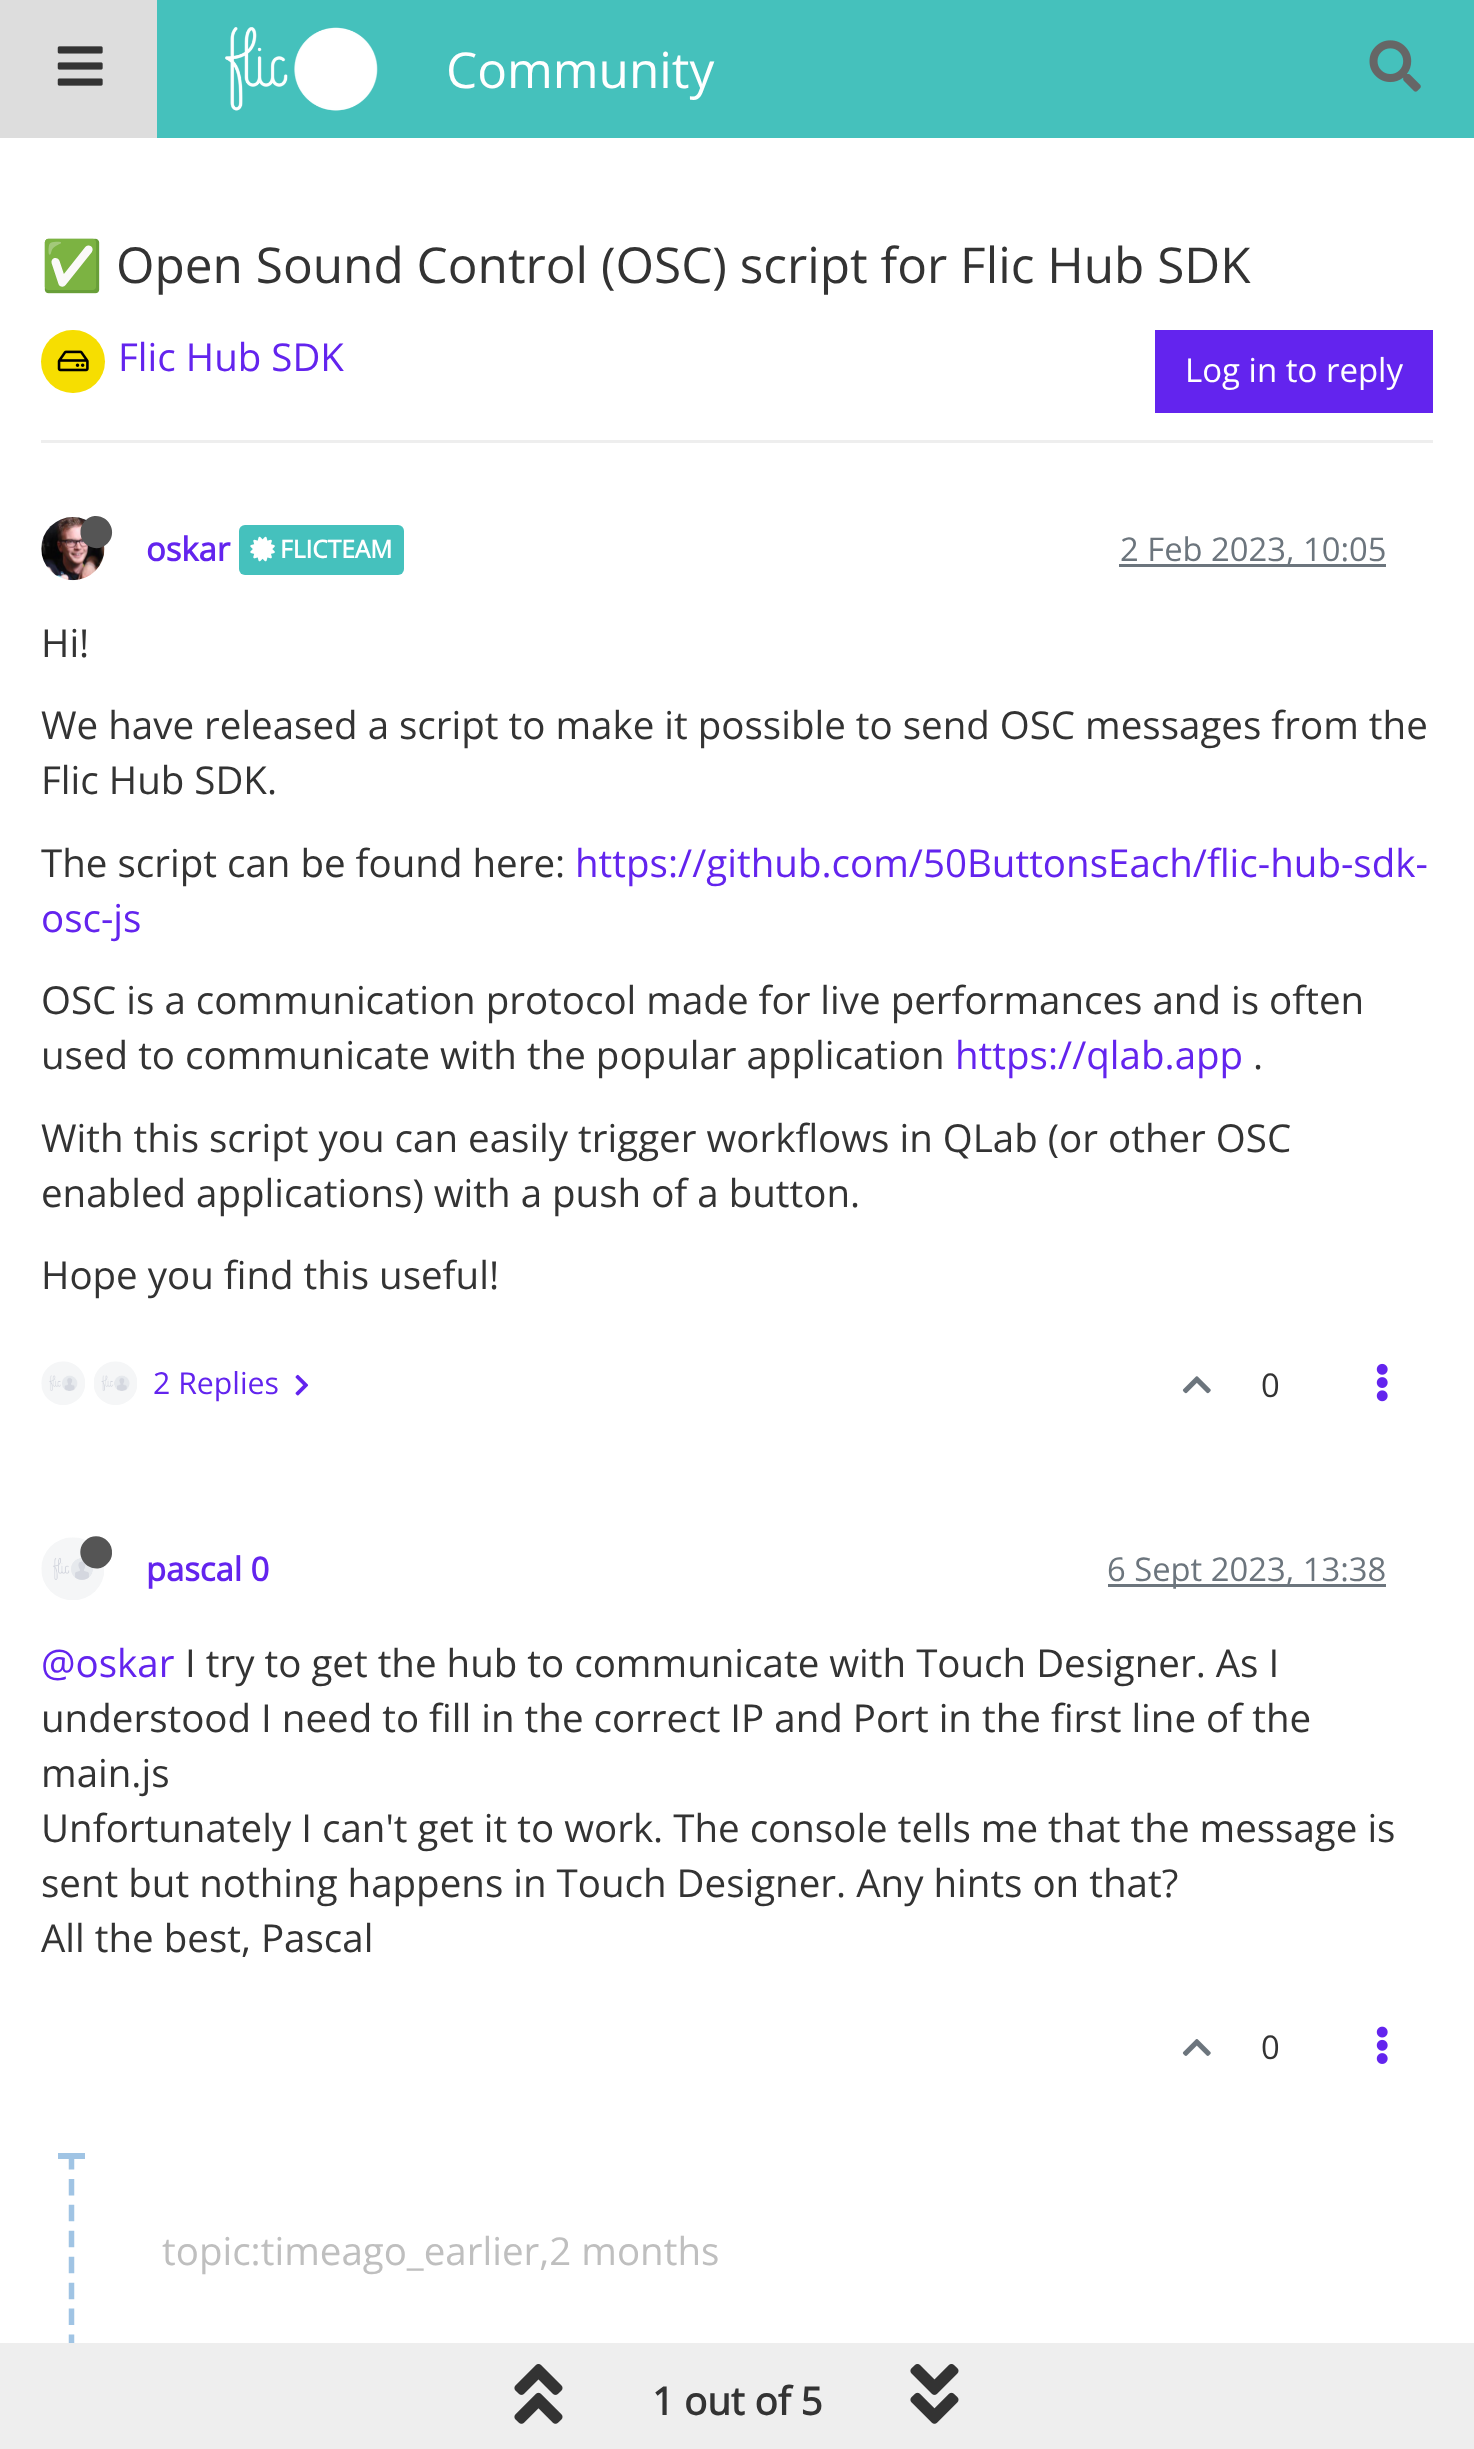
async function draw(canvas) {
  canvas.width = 1474
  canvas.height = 2449
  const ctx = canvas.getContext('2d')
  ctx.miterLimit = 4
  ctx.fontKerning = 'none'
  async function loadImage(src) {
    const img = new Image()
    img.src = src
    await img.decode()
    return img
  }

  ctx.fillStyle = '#fff'
  ctx.fillRect(0, 0, 1474, 2449)
  ctx.fillStyle = '#45c1bc'
  ctx.fillRect(157, 0, 1317, 138)
  ctx.fillStyle = '#ddd'
  ctx.fillRect(0, 0, 157, 138)
  ctx.drawImage(await loadImage('image0.png'), 57, 46, 46, 40)
  ctx.drawImage(await loadImage('image1.png'), 225, 27, 153, 84)
  ctx.font = '49.5px Open Sans'
  ctx.fillStyle = '#fff'
  ctx.fillText('Community', 446, 88)
  ctx.drawImage(await loadImage('image2.png'), 1369, 40, 52, 52)
  ctx.font = '49.5px Noto Color Emoji'
  ctx.fillStyle = '#333'
  ctx.fillText('✅', 41, 283)
  ctx.font = '49.5px Open Sans'
  ctx.fillText('Open Sound Control (OSC) script for Flic Hub SDK', 116, 283)
  ctx.fillStyle = '#eee'
  ctx.fillRect(41, 440, 1392, 3)
  ctx.fillStyle = '#f6de01'
  ctx.beginPath()
  ctx.roundRect(41, 330, 64, 63, 31.5)
  ctx.fill()
  ctx.drawImage(await loadImage('image3.png'), 57, 350, 32, 22)
  ctx.font = '38.5px Open Sans'
  ctx.fillStyle = '#6324ee'
  ctx.fillText('Flic Hub SDK', 118, 371)
  ctx.fillRect(1155, 330, 278, 83)
  ctx.font = '33px Open Sans'
  ctx.fillStyle = '#fff'
  ctx.fillText('Log in to reply', 1185, 382)
  ctx.drawImage(await loadImage('image4.png'), 41, 517, 64, 64)
  ctx.fillStyle = '#555'
  ctx.beginPath()
  ctx.moveTo(85, 521)
  ctx.bezierCurveTo(87.5, 518, 91, 516.5, 94.5, 516)
  ctx.bezierCurveTo(109.5, 515, 118, 533, 107.5, 543.5)
  ctx.bezierCurveTo(97, 554, 79, 545.5, 80.5, 530.5)
  ctx.bezierCurveTo(80.5, 527, 82.5, 523.5, 85, 521)
  ctx.closePath()
  ctx.fill()
  ctx.font = 'bold 32.75px Open Sans'
  ctx.fillStyle = '#6324ee'
  ctx.fillText('oskar', 146, 561)
  ctx.fillStyle = '#45c1bd'
  ctx.beginPath()
  ctx.roundRect(239, 525, 165, 50, 6)
  ctx.fill()
  ctx.drawImage(await loadImage('image5.png'), 250, 536, 25, 26)
  ctx.font = 'bold 24.5px Open Sans'
  ctx.fillStyle = '#fff'
  ctx.fillText('FLICTEAM', 280, 558)
  ctx.fillStyle = '#6c757d'
  ctx.fillRect(1119, 564, 267, 3)
  ctx.font = '32.75px Open Sans'
  ctx.fillText('2 Feb 2023, 10:05', 1120, 561)
  ctx.font = '38.5px Open Sans'
  ctx.fillStyle = '#333'
  ctx.fillText('Hi!', 41, 657)
  ctx.fillText('We have released a script to make it possible to send OSC messages from the', 41, 739)
  ctx.fillText('Flic Hub SDK.', 41, 794)
  ctx.fillText('The script can be found here:', 41, 877)
  ctx.fillStyle = '#6324ee'
  ctx.fillText('https://github.com/50ButtonsEach/flic-hub-sdk-', 575, 877)
  ctx.fillText('osc-js', 41, 932)
  ctx.fillStyle = '#333'
  ctx.fillText('OSC is a communication protocol made for live performances and is often', 41, 1014)
  ctx.fillText('used to communicate with the popular application', 41, 1069)
  ctx.fillStyle = '#6324ee'
  ctx.fillText('https://qlab.app', 955, 1069)
  ctx.fillStyle = '#333'
  ctx.fillText('.', 1253, 1069)
  ctx.fillText('With this script you can easily trigger workflows in QLab (or other OSC', 41, 1152)
  ctx.fillText('enabled applications) with a push of a button.', 41, 1207)
  ctx.fillText('Hope you find this useful!', 41, 1289)
  ctx.drawImage(await loadImage('image6.png'), 41, 1361, 44, 44)
  ctx.drawImage(await loadImage('image7.png'), 94, 1361, 43, 44)
  ctx.font = '30.25px Open Sans'
  ctx.fillStyle = '#6324ee'
  ctx.fillText('2 Replies', 153, 1394)
  ctx.drawImage(await loadImage('image8.png'), 295, 1374, 14, 22)
  ctx.drawImage(await loadImage('image9.png'), 1182, 1376, 29, 18)
  ctx.font = '32.75px Open Sans'
  ctx.fillStyle = '#333'
  ctx.fillText('0', 1261, 1397)
  ctx.drawImage(await loadImage('image10.png'), 1376, 1363, 12, 39)
  ctx.drawImage(await loadImage('image11.png'), 41, 1537, 63, 63)
  ctx.fillStyle = '#555'
  ctx.beginPath()
  ctx.moveTo(85, 1541)
  ctx.bezierCurveTo(95.5, 1530.5, 113.5, 1539, 112, 1554)
  ctx.bezierCurveTo(112, 1557.5, 110, 1561, 107.5, 1563.5)
  ctx.bezierCurveTo(105, 1566.5, 101.5, 1568, 98, 1568.5)
  ctx.bezierCurveTo(83, 1569.5, 74.5, 1551.5, 85, 1541)
  ctx.closePath()
  ctx.fill()
  ctx.font = 'bold 32.75px Open Sans'
  ctx.fillStyle = '#6324ee'
  ctx.fillText('pascal 0', 146, 1581)
  ctx.fillStyle = '#6c757d'
  ctx.fillRect(1108, 1584, 278, 3)
  ctx.font = '32.75px Open Sans'
  ctx.fillText('6 Sept 2023, 13:38', 1107, 1581)
  ctx.font = '38.5px Open Sans'
  ctx.fillStyle = '#6324ee'
  ctx.fillText('@oskar', 41, 1677)
  ctx.fillStyle = '#333'
  ctx.fillText('I try to get the hub to communicate with Touch Designer. As I', 185, 1677)
  ctx.fillText('understood I need to fill in the correct IP and Port in the first line of the', 41, 1732)
  ctx.fillText('main.js', 41, 1787)
  ctx.fillText('Unfortunately I can\'t get it to work. The console tells me that the message is', 41, 1842)
  ctx.fillText('sent but nothing happens in Touch Designer. Any hints on that?', 41, 1897)
  ctx.fillText('All the best, Pascal', 41, 1952)
  ctx.drawImage(await loadImage('image12.png'), 1182, 2039, 29, 17)
  ctx.font = '32.75px Open Sans'
  ctx.fillText('0', 1261, 2059)
  ctx.drawImage(await loadImage('image13.png'), 1376, 2026, 12, 38)
  ctx.beginPath()
  ctx.moveTo(71.5, 2153)
  ctx.lineTo(71.5, 2351)
  ctx.strokeStyle = '#a0c4e4'
  ctx.lineWidth = 5.5
  ctx.setLineDash([16.5, 9.43])
  ctx.stroke()
  ctx.fillStyle = '#a0c4e4'
  ctx.fillRect(58, 2153, 27, 6)
  ctx.font = '38.5px Open Sans'
  ctx.fillStyle = '#bfbfbf'
  ctx.fillText('topic:timeago_earlier,2 months', 162, 2265)
  ctx.fillStyle = '#eee'
  ctx.fillRect(0, 2343, 1474, 106)
  ctx.drawImage(await loadImage('image14.png'), 514, 2364, 49, 60)
  ctx.font = 'bold 38.5px Open Sans'
  ctx.fillStyle = '#333'
  ctx.fillText('1 out of 5', 652, 2415)
  ctx.drawImage(await loadImage('image15.png'), 910, 2364, 49, 60)
}

draw(document.querySelector('canvas'))
